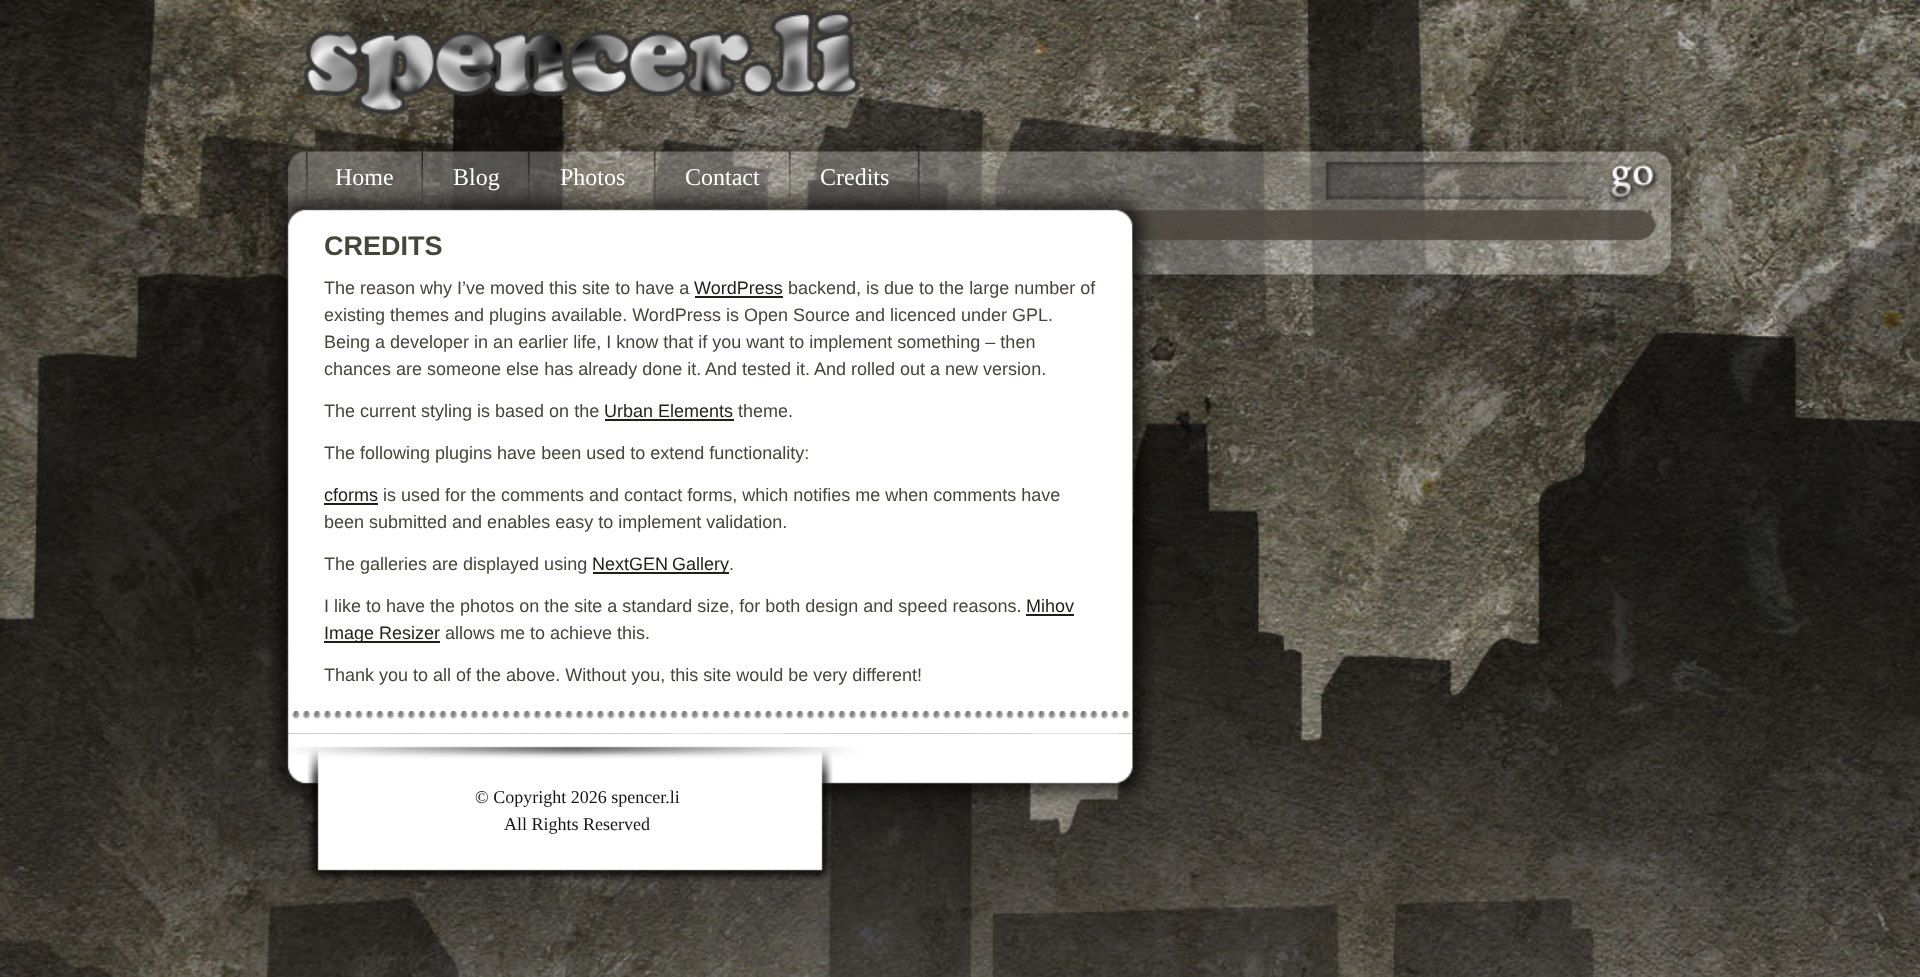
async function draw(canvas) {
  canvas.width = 1920
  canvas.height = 977
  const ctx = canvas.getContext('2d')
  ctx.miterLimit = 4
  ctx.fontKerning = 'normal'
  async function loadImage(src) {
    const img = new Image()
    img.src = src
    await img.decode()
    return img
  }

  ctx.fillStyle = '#fff'
  ctx.fillRect(0, 0, 1920, 977)
  ctx.drawImage(await loadImage('image0.png'), 0, 0, 1920, 977)
  ctx.drawImage(await loadImage('image1.png'), 269, 131, 1421, 94)
  ctx.drawImage(await loadImage('image2.png'), 303, 10, 557, 106)
  ctx.drawImage(await loadImage('image3.png'), 421, 151, 2, 55)
  ctx.font = '24px Liberation Serif'
  ctx.fillText('Home', 335, 185)
  ctx.drawImage(await loadImage('image4.png'), 527, 151, 3, 52)
  ctx.fillText('Blog', 453, 185)
  ctx.drawImage(await loadImage('image5.png'), 653, 151, 3, 53)
  ctx.fillText('Photos', 560, 185)
  ctx.drawImage(await loadImage('image6.png'), 788, 151, 3, 55)
  ctx.fillText('Contact', 685, 185)
  ctx.drawImage(await loadImage('image7.png'), 917, 151, 3, 52)
  ctx.fillText('Credits', 820, 185)
  ctx.drawImage(await loadImage('image8.png'), 268, 225, 887, 509)
  ctx.drawImage(await loadImage('image9.png'), 292, 711, 838, 8)
  ctx.font = 'bold 27px Liberation Sans'
  ctx.fillStyle = '#47443a'
  ctx.fillText('CREDITS', 324, 255)
  ctx.font = '18px Liberation Sans'
  ctx.fillText('The reason why I’ve moved this site to have a', 324, 294)
  ctx.fillStyle = '#1f1e18'
  ctx.fillText('WordPress', 694, 294)
  ctx.fillRect(695, 296, 88, 2)
  ctx.fillStyle = '#47443a'
  ctx.fillText('backend, is due to the large number of', 788, 294)
  ctx.fillText('existing themes and plugins available. WordPress is Open Source and licenced under GPL.', 324, 321)
  ctx.fillText('Being a developer in an earlier life, I know that if you want to implement something – then', 324, 348)
  ctx.fillText('chances are someone else has already done it.', 324, 375)
  ctx.fillText('And tested it.', 705, 375)
  ctx.fillText('And rolled out a new version.', 814, 375)
  ctx.fillText('The current styling is based on the', 324, 417)
  ctx.fillStyle = '#1f1e18'
  ctx.fillText('Urban Elements', 604, 417)
  ctx.fillRect(605, 419, 129, 2)
  ctx.fillStyle = '#47443a'
  ctx.fillText('theme.', 738, 417)
  ctx.fillText('The following plugins have been used to extend functionality:', 324, 459)
  ctx.fillStyle = '#1f1e18'
  ctx.fillText('cforms', 324, 501)
  ctx.fillRect(324, 503, 54, 2)
  ctx.fillStyle = '#47443a'
  ctx.fillText('is used for the comments and contact forms, which notifies me when comments have', 383, 501)
  ctx.fillText('been submitted and enables easy to implement validation.', 324, 528)
  ctx.fillText('The galleries are displayed using', 324, 570)
  ctx.fillStyle = '#1f1e18'
  ctx.fillRect(593, 572, 136, 2)
  ctx.wordSpacing = '-1px'
  ctx.fillText('NextGEN Gallery', 592, 570)
  ctx.wordSpacing = '0px'
  ctx.fillStyle = '#47443a'
  ctx.fillText('.', 729, 570)
  ctx.fillText('I like to have the photos on the site a standard size, for both design and speed reasons.', 324, 612)
  ctx.fillStyle = '#1f1e18'
  ctx.fillText('Mihov', 1026, 612)
  ctx.fillRect(1026, 614, 48, 2)
  ctx.fillRect(324, 641, 116, 2)
  ctx.fillText('Image Resizer', 324, 639)
  ctx.fillStyle = '#47443a'
  ctx.fillText('allows me to achieve this.', 445, 639)
  ctx.fillText('Thank you to all of the above. Without you, this site would be very different!', 324, 681)
  ctx.drawImage(await loadImage('image10.png'), 1132, 225, 558, 68)
  ctx.drawImage(await loadImage('image11.png'), 269, 733, 883, 148)
  ctx.font = '18px Liberation Serif'
  ctx.fillStyle = '#181512'
  ctx.fillText('© Copyright 2026 spencer.li', 475, 803)
  ctx.fillText('All Rights Reserved', 504, 830)
}

draw(document.querySelector('canvas'))
